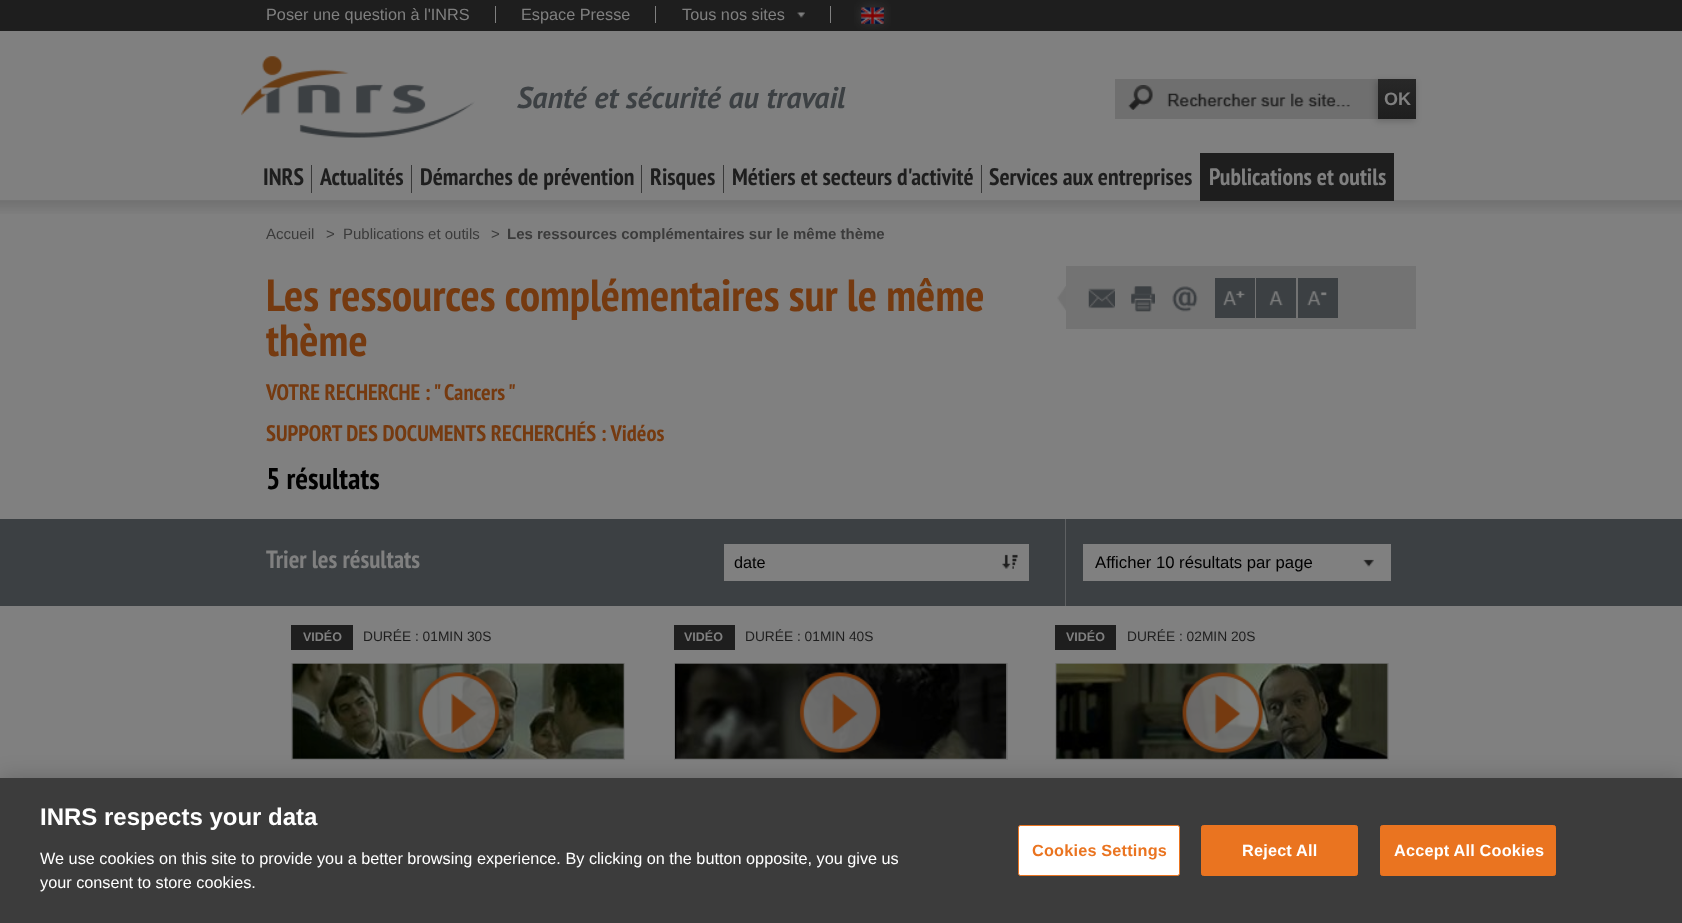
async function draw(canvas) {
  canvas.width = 1682
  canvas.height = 923
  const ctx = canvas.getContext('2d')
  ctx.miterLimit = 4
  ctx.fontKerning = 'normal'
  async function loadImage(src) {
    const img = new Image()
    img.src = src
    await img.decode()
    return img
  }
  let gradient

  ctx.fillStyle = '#808080'
  ctx.fillRect(0, 0, 1682, 923)
  ctx.fillStyle = '#1e1e1e'
  ctx.fillRect(0, 0, 1682, 31)
  ctx.fillStyle = '#808080'
  ctx.fillRect(495, 6, 1, 17)
  ctx.font = '16.25px Liberation Sans'
  ctx.fillText('Poser une question à l\'INRS', 266, 20)
  ctx.fillRect(655, 6, 1, 17)
  ctx.fillText('Espace Presse', 521, 20)
  ctx.fillRect(830, 6, 1, 17)
  ctx.fillText('Tous nos sites', 682, 20)
  ctx.drawImage(await loadImage('image0.png'), 797, 12, 8, 6)
  ctx.drawImage(await loadImage('image1.png'), 854, 0, 37, 30)
  ctx.drawImage(await loadImage('image2.png'), 861, 7, 23, 17)
  ctx.drawImage(await loadImage('image3.png'), 0, 200, 1682, 14)
  ctx.drawImage(await loadImage('image4.png'), 241, 56, 234, 82)
  ctx.font = 'italic bold 30px PT Sans'
  ctx.fillStyle = '#3c4043'
  ctx.fillText('Santé et sécurité au travail', 517, 108)
  ctx.fillStyle = '#6f6f6f'
  ctx.fillRect(1115, 79, 263, 40)
  ctx.drawImage(await loadImage('image5.png'), 1128, 85, 25, 25)
  ctx.drawImage(await loadImage('image6.png'), 1167, 93, 183, 14)
  ctx.fillStyle = '#00000033'
  ctx.filter = 'blur(3px)'
  ctx.beginPath()
  ctx.rect(1376, 81, 39, 40)
  ctx.fill()
  ctx.filter = 'none'
  gradient = ctx.createLinearGradient(1397, 79, 1397, 119)
  gradient.addColorStop(0, '#282828')
  gradient.addColorStop(1, '#1e1e1e')
  ctx.fillStyle = gradient
  ctx.fillRect(1378, 79, 38, 40)
  ctx.font = 'bold 18px Liberation Sans'
  ctx.fillStyle = '#808080'
  ctx.fillText('OK', 1384, 105)
  ctx.fillStyle = '#383838'
  ctx.fillRect(311, 165, 1, 28)
  ctx.font = 'bold 23.75px PT Sans Narrow'
  ctx.fillStyle = '#1e1e1e'
  ctx.fillText('INRS', 263, 185)
  ctx.fillStyle = '#383838'
  ctx.fillRect(411, 165, 1, 28)
  ctx.fillStyle = '#1e1e1e'
  ctx.fillText('Actualités', 320, 185)
  ctx.fillStyle = '#383838'
  ctx.fillRect(641, 165, 1, 28)
  ctx.fillStyle = '#1e1e1e'
  ctx.fillText('Démarches de prévention', 420, 185)
  ctx.fillStyle = '#383838'
  ctx.fillRect(723, 165, 1, 28)
  ctx.fillStyle = '#1e1e1e'
  ctx.fillText('Risques', 650, 185)
  ctx.fillStyle = '#383838'
  ctx.fillRect(981, 165, 1, 28)
  ctx.fillStyle = '#1e1e1e'
  ctx.fillText('Métiers et secteurs d\'activité', 732, 185)
  ctx.fillText('Services aux entreprises', 989, 185)
  ctx.fillRect(1200, 153, 194, 48)
  ctx.fillStyle = '#808080'
  ctx.fillText('Publications et outils', 1209, 185)
  ctx.font = '15px Liberation Sans'
  ctx.fillStyle = '#3b3b3b'
  ctx.fillText('Accueil', 266, 239)
  ctx.fillText('>', 326, 239)
  ctx.fillText('Publications et outils', 343, 239)
  ctx.fillText('>', 491, 239)
  ctx.font = 'bold 15px Liberation Sans'
  ctx.fillText('Les ressources complémentaires sur le même thème', 507, 239)
  ctx.font = 'bold 45px PT Sans Narrow'
  ctx.fillStyle = '#753a10'
  ctx.fillText('Les ressources complémentaires sur le même', 266, 311)
  ctx.fillText('thème', 266, 356)
  ctx.font = 'bold 22.5px PT Sans Narrow'
  ctx.fillText('VOTRE RECHERCHE : " Cancers', 266, 400)
  ctx.fillText('"', 508, 400)
  ctx.fillText('SUPPORT DES DOCUMENTS RECHERCHÉS : Vidéos', 266, 441)
  ctx.font = 'bold 30px PT Sans Narrow'
  ctx.fillStyle = '#000'
  ctx.fillText('5 résultats', 266, 489)
  ctx.fillStyle = '#737373'
  ctx.fillRect(1066, 266, 350, 63)
  ctx.drawImage(await loadImage('image7.png'), 1057, 286, 9, 25)
  ctx.drawImage(await loadImage('image8.png'), 1088, 288, 27, 21)
  ctx.drawImage(await loadImage('image9.png'), 1131, 286, 24, 26)
  ctx.drawImage(await loadImage('image10.png'), 1172, 286, 26, 26)
  ctx.fillStyle = '#3c4043'
  ctx.fillRect(1215, 278, 40, 40)
  ctx.drawImage(await loadImage('image11.png'), 1223, 291, 23, 15)
  ctx.fillRect(1256, 278, 40, 40)
  ctx.drawImage(await loadImage('image12.png'), 1269, 291, 14, 15)
  ctx.fillRect(1298, 278, 40, 40)
  ctx.drawImage(await loadImage('image13.png'), 1307, 291, 20, 15)
  ctx.fillRect(0, 519, 1682, 87)
  ctx.fillStyle = '#5e6062'
  ctx.fillRect(1065, 519, 1, 87)
  ctx.font = 'bold 25px PT Sans Narrow'
  ctx.fillStyle = '#808080'
  ctx.fillText('Trier les résultats', 266, 568)
  ctx.fillRect(724, 544, 305, 37)
  ctx.font = '16.25px Liberation Sans'
  ctx.fillStyle = '#000'
  ctx.fillText('date', 734, 568)
  ctx.drawImage(await loadImage('image14.png'), 1002, 554, 16, 15)
  ctx.fillStyle = '#808080'
  ctx.fillRect(1083, 544, 308, 37)
  ctx.font = '16.7px Liberation Sans'
  ctx.fillStyle = '#000'
  ctx.fillText('Afficher 10 résultats par page', 1095, 568)
  ctx.drawImage(await loadImage('image15.png'), 1363, 559, 11, 8)
  ctx.fillStyle = '#1e1e1e'
  ctx.fillRect(291, 625, 62, 25)
  ctx.font = 'bold 12.5px Liberation Sans'
  ctx.fillStyle = '#808080'
  ctx.fillText('VIDÉO', 303, 641)
  ctx.font = '13.75px Liberation Sans'
  ctx.fillStyle = '#1e1e1e'
  ctx.fillText('DURÉE : 01MIN 30S', 363, 641)
  ctx.strokeStyle = '#737373'
  ctx.strokeRect(291.5, 663.5, 333, 96)
  ctx.drawImage(await loadImage('image16.png'), 292, 663, 332, 96)
  ctx.drawImage(await loadImage('image17.png'), 413, 672, 87, 88)
  ctx.fillRect(674, 625, 61, 25)
  ctx.font = 'bold 12.5px Liberation Sans'
  ctx.fillStyle = '#808080'
  ctx.fillText('VIDÉO', 684, 641)
  ctx.font = '13.75px Liberation Sans'
  ctx.fillStyle = '#1e1e1e'
  ctx.fillText('DURÉE : 01MIN 40S', 745, 641)
  ctx.strokeRect(674.5, 663.5, 333, 96)
  ctx.drawImage(await loadImage('image18.png'), 675, 663, 332, 96)
  ctx.drawImage(await loadImage('image19.png'), 795, 672, 86, 88)
  ctx.fillRect(1055, 625, 61, 25)
  ctx.font = 'bold 12.5px Liberation Sans'
  ctx.fillStyle = '#808080'
  ctx.fillText('VIDÉO', 1066, 641)
  ctx.font = '13.75px Liberation Sans'
  ctx.fillStyle = '#1e1e1e'
  ctx.fillText('DURÉE : 02MIN 20S', 1127, 641)
  ctx.strokeRect(1055.5, 663.5, 333, 96)
  ctx.drawImage(await loadImage('image20.png'), 1056, 663, 332, 96)
  ctx.drawImage(await loadImage('image21.png'), 1178, 672, 86, 88)
  ctx.fillStyle = '#00000033'
  ctx.filter = 'blur(11px)'
  ctx.beginPath()
  ctx.rect(0, 778, 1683, 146)
  ctx.fill()
  ctx.filter = 'none'
  ctx.fillStyle = '#3c3c3c'
  ctx.fillRect(0, 778, 1682, 145)
  ctx.font = 'bold 24px Liberation Sans'
  ctx.fillStyle = '#fff'
  ctx.fillText('INRS respects your data', 40, 825)
  ctx.font = '16.25px Liberation Sans'
  ctx.fillText('We use cookies on this site to provide you a better browsing experience. By clicking on the button opposite, you give us', 40, 864)
  ctx.fillText('your consent to store cookies.', 40, 888)
  ctx.beginPath()
  ctx.roundRect(1018.5, 825.5, 161, 50, 2)
  ctx.fill()
  ctx.strokeStyle = '#ea7420'
  ctx.stroke()
  ctx.letterSpacing = '0.2px'
  ctx.font = 'bold 16.25px Liberation Sans'
  ctx.fillStyle = '#ea7420'
  ctx.fillText('Cookies Settings', 1032, 856)
  ctx.beginPath()
  ctx.roundRect(1201.5, 825.5, 156, 50, 2)
  ctx.fill()
  ctx.stroke()
  ctx.fillStyle = '#fff'
  ctx.fillText('Reject All', 1242, 856)
  ctx.fillStyle = '#ea7420'
  ctx.beginPath()
  ctx.roundRect(1380.5, 825.5, 175, 50, 2)
  ctx.fill()
  ctx.stroke()
  ctx.fillStyle = '#fff'
  ctx.fillText('Accept All Cookies', 1394, 856)
}

draw(document.querySelector('canvas'))
